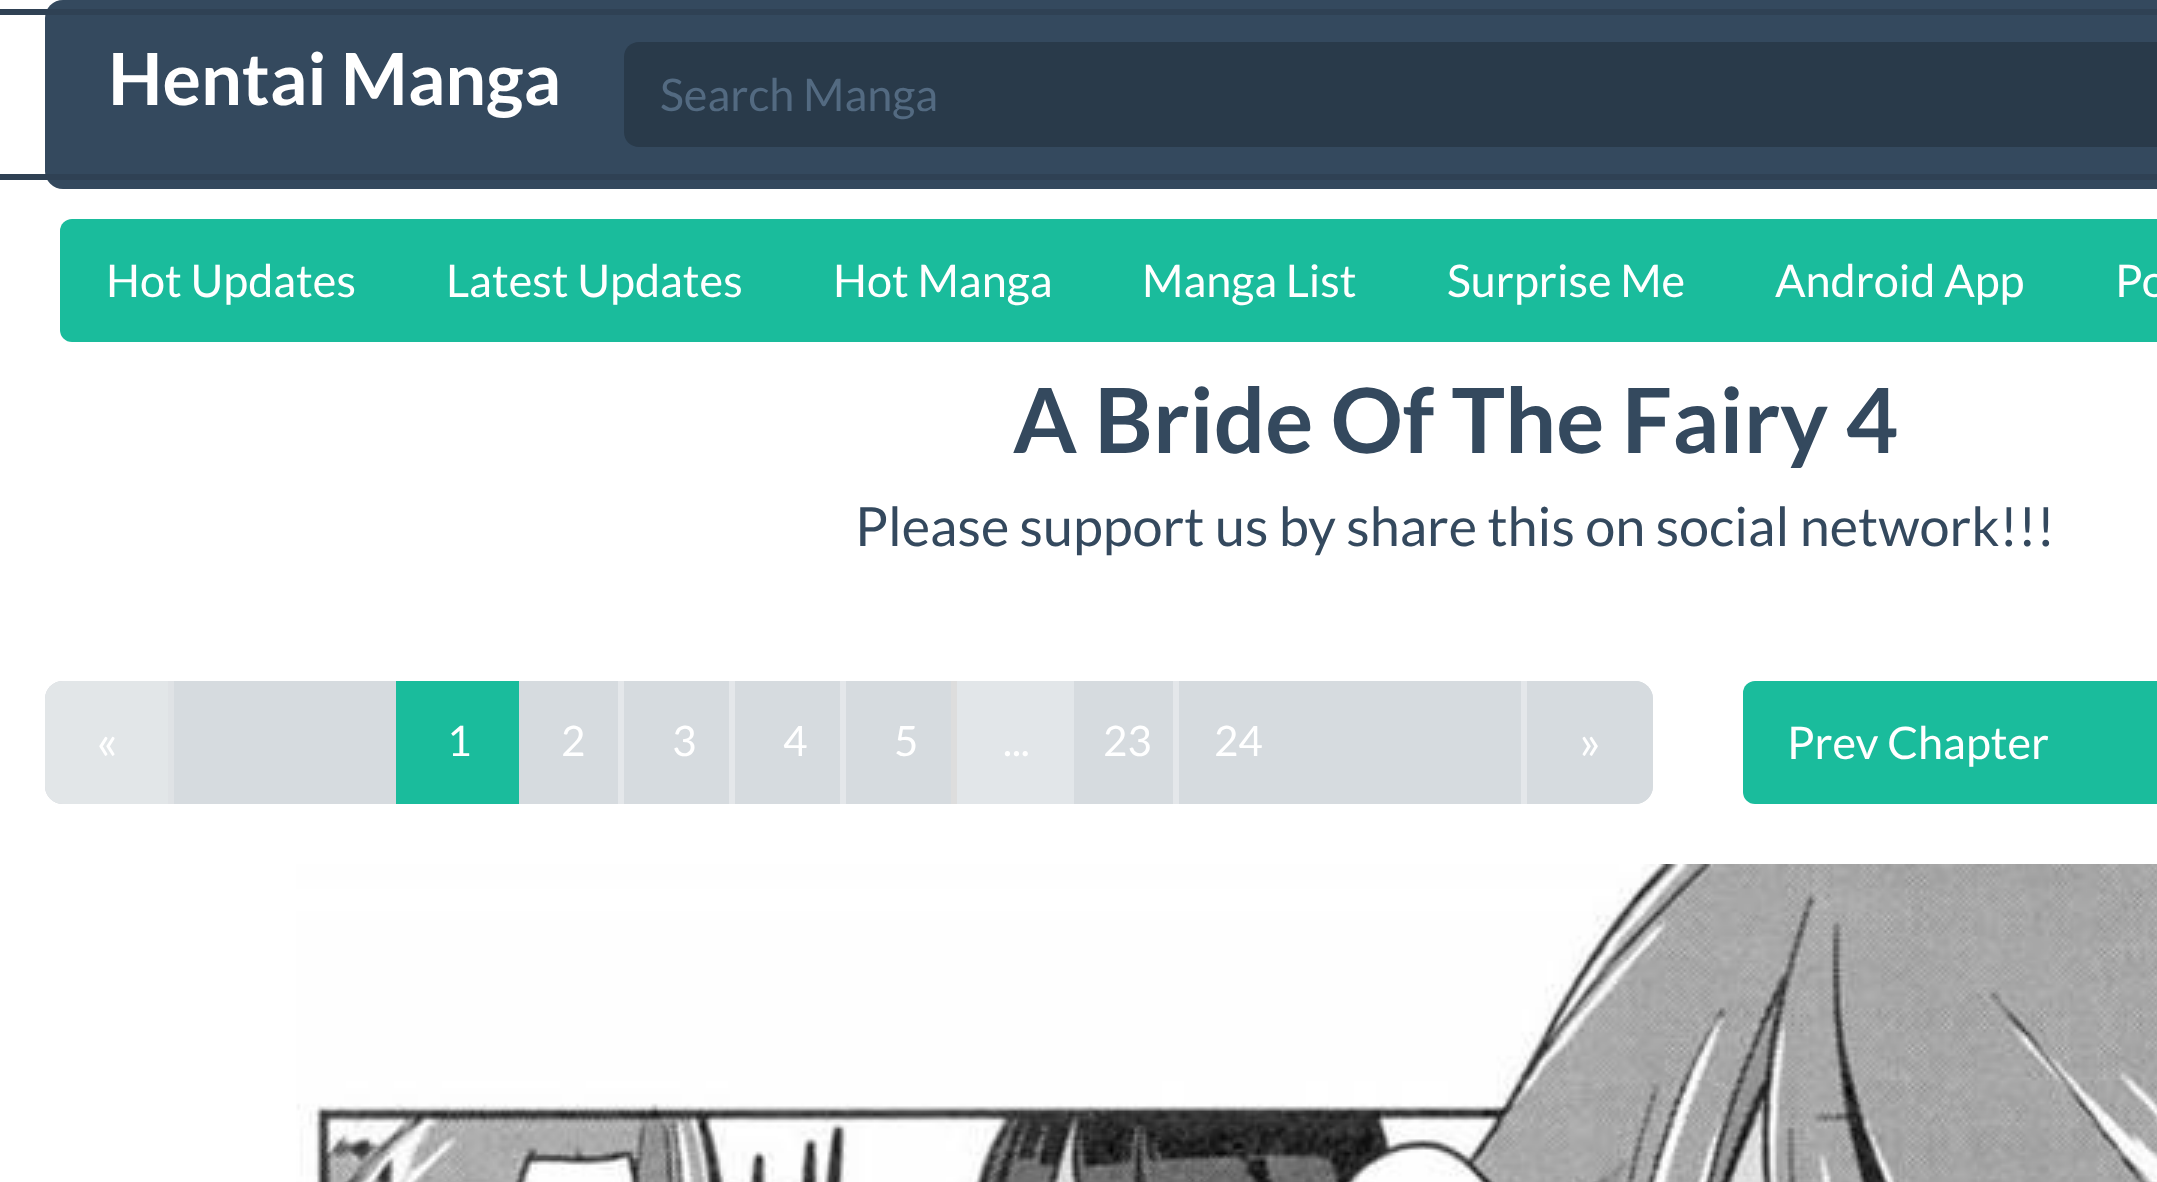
async function draw(canvas) {
  canvas.width = 2157
  canvas.height = 1182
  const ctx = canvas.getContext('2d')
  ctx.miterLimit = 4
  ctx.fontKerning = 'normal'
  async function loadImage(src) {
    const img = new Image()
    img.src = src
    await img.decode()
    return img
  }

  ctx.fillStyle = '#fff'
  ctx.fillRect(0, 0, 2157, 1182)
  ctx.fillStyle = '#34495e'
  ctx.beginPath()
  ctx.roundRect(45, 0, 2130, 189, 18)
  ctx.fill()
  ctx.font = 'bold 72px Lato'
  ctx.fillStyle = '#fff'
  ctx.fillText('Hentai Manga', 108, 105)
  ctx.fillStyle = '#2f4154'
  ctx.fillRect(0, 9, 2157, 6)
  ctx.fillRect(0, 174, 2157, 6)
  ctx.fillStyle = '#293a4a'
  ctx.beginPath()
  ctx.moveTo(639, 42)
  ctx.lineTo(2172, 42)
  ctx.lineTo(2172, 147)
  ctx.lineTo(639, 147)
  ctx.bezierCurveTo(630.5, 147, 624, 140.5, 624, 132)
  ctx.lineTo(624, 57)
  ctx.bezierCurveTo(624, 48.5, 630.5, 42, 639, 42)
  ctx.closePath()
  ctx.fill()
  ctx.font = '45px Lato'
  ctx.fillStyle = '#536a81'
  ctx.fillText('Search Manga', 660, 111)
  ctx.fillStyle = '#1abc9c'
  ctx.beginPath()
  ctx.roundRect(60, 219, 342, 123, [12, 0, 0, 12])
  ctx.fill()
  ctx.fillStyle = '#fff'
  ctx.fillText('Hot Updates', 106, 297)
  ctx.fillStyle = '#1abc9c'
  ctx.fillRect(402, 219, 1755, 123)
  ctx.fillStyle = '#fff'
  ctx.fillText('Latest Updates', 446, 297)
  ctx.fillText('Hot Manga', 833, 297)
  ctx.fillText('Manga List', 1142, 297)
  ctx.fillText('Surprise Me', 1447, 297)
  ctx.fillText('Android App', 1775, 297)
  ctx.fillText('Po', 2115, 297)
  ctx.font = 'bold 90px Lato'
  ctx.fillStyle = '#34495e'
  ctx.fillText('A Bride Of The Fairy 4', 1013, 453)
  ctx.font = '54px Lato'
  ctx.fillText('Please support us by share this on social network!!!', 855, 546)
  ctx.fillStyle = '#d6dbdf'
  ctx.beginPath()
  ctx.roundRect(45, 681, 1608, 123, 18)
  ctx.fill()
  ctx.beginPath()
  ctx.roundRect(45, 681, 129, 123, [18, 0, 0, 18])
  ctx.fill()
  ctx.fillStyle = '#ffffff4d'
  ctx.beginPath()
  ctx.roundRect(45, 681, 129, 123, [18, 0, 0, 18])
  ctx.fill()
  ctx.fillStyle = '#dfe2e5'
  ctx.fillRect(168, 681, 6, 123)
  ctx.font = '48px Lato'
  ctx.fillStyle = '#fff'
  ctx.fillText('«', 96, 759)
  ctx.fillStyle = '#1abc9c'
  ctx.fillRect(396, 681, 123, 123)
  ctx.font = '42px Lato'
  ctx.fillStyle = '#fff'
  ctx.fillText('1', 447, 756)
  ctx.fillText('2', 561, 756)
  ctx.fillStyle = '#e4e7ea'
  ctx.fillRect(618, 681, 6, 123)
  ctx.fillStyle = '#fff'
  ctx.fillText('3', 672, 756)
  ctx.fillStyle = '#e4e7ea'
  ctx.fillRect(729, 681, 6, 123)
  ctx.fillStyle = '#fff'
  ctx.fillText('4', 783, 756)
  ctx.fillStyle = '#e4e7ea'
  ctx.fillRect(840, 681, 6, 123)
  ctx.fillStyle = '#fff'
  ctx.fillText('5', 894, 756)
  ctx.fillStyle = '#e2e6e9'
  ctx.fillRect(957, 681, 117, 123)
  ctx.fillStyle = '#ddd'
  ctx.fillRect(951, 681, 6, 123)
  ctx.fillStyle = '#fff'
  ctx.fillText('...', 1003, 756)
  ctx.fillText('23', 1103, 756)
  ctx.fillStyle = '#e4e7ea'
  ctx.fillRect(1173, 681, 6, 123)
  ctx.fillStyle = '#fff'
  ctx.fillText('24', 1214, 756)
  ctx.fillStyle = '#d6dbdf'
  ctx.beginPath()
  ctx.roundRect(1524, 681, 129, 123, [0, 18, 18, 0])
  ctx.fill()
  ctx.fillStyle = '#e4e7ea'
  ctx.fillRect(1521, 681, 6, 123)
  ctx.font = '48px Lato'
  ctx.fillStyle = '#fff'
  ctx.fillText('»', 1579, 759)
  ctx.fillStyle = '#1abc9c'
  ctx.beginPath()
  ctx.roundRect(1743, 681, 351, 123, [12, 0, 0, 12])
  ctx.fill()
  ctx.font = '45px Lato'
  ctx.fillStyle = '#fff'
  ctx.fillText('Prev Chapter', 1787, 759)
  ctx.fillStyle = '#1abc9c'
  ctx.fillRect(2094, 681, 63, 123)
  ctx.drawImage(await loadImage('image0.png'), 296, 864, 1861, 318)
}

draw(document.querySelector('canvas'))
